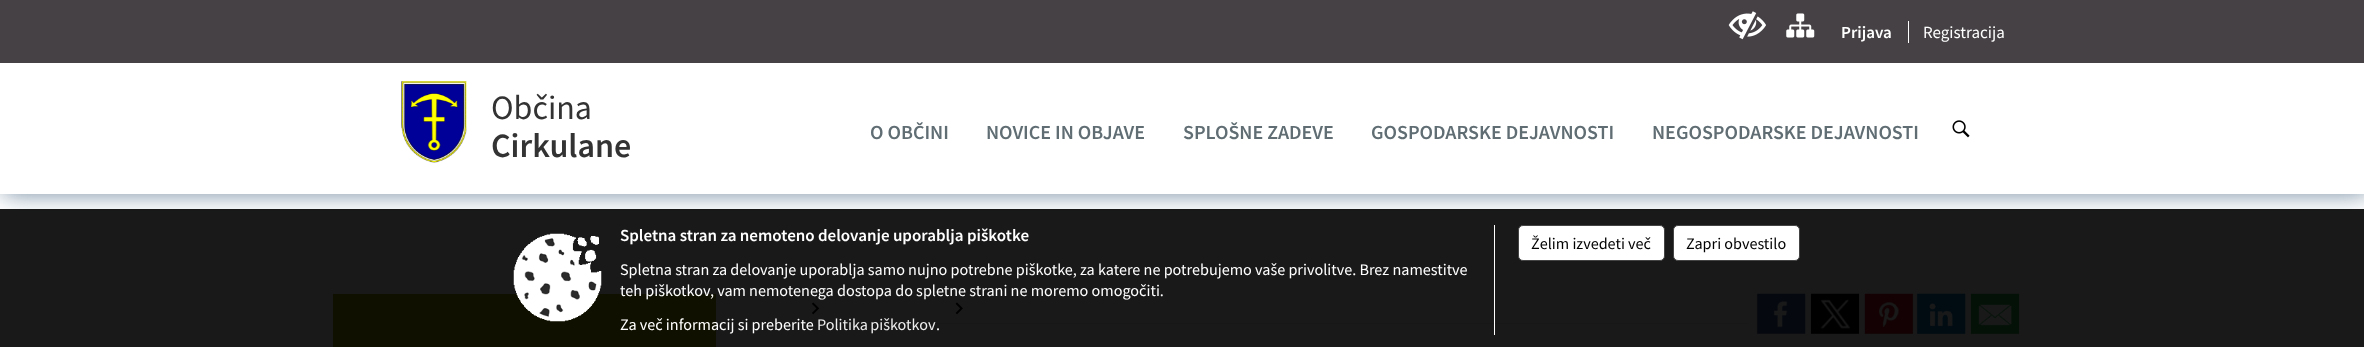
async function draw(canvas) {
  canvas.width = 2364
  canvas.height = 347
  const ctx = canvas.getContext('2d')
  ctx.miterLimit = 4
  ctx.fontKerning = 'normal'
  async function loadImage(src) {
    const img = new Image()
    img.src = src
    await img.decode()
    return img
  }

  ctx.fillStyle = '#fff'
  ctx.fillRect(0, 0, 2364, 347)
  ctx.save()
  ctx.beginPath()
  ctx.moveTo(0, 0)
  ctx.lineTo(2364, 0)
  ctx.lineTo(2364, 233)
  ctx.lineTo(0, 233)
  ctx.closePath()
  ctx.moveTo(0, 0)
  ctx.lineTo(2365, 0)
  ctx.lineTo(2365, 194)
  ctx.lineTo(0, 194)
  ctx.closePath()
  ctx.clip('evenodd')
  ctx.fillStyle = '#71899f'
  ctx.filter = 'blur(12.5px)'
  ctx.beginPath()
  ctx.rect(3, 0, 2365, 194)
  ctx.fill()
  ctx.filter = 'none'
  ctx.restore()
  ctx.fillStyle = '#ffffffcc'
  ctx.fillRect(0, 193, 2364, 1)
  ctx.fillStyle = '#454144'
  ctx.fillRect(0, 0, 2364, 63)
  ctx.drawImage(await loadImage('image0.png'), 1728, 11, 38, 29)
  ctx.drawImage(await loadImage('image1.png'), 1786, 13, 29, 25)
  ctx.font = '600 17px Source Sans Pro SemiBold'
  ctx.fillStyle = '#fff'
  ctx.fillText('Prijava', 1841, 38)
  ctx.fillRect(1908, 21, 1, 22)
  ctx.font = '17px Source Sans Pro'
  ctx.fillText('Registracija', 1923, 38)
  ctx.drawImage(await loadImage('image2.png'), 401, 81, 66, 82)
  ctx.font = '34px Source Sans Pro'
  ctx.fillStyle = '#333'
  ctx.fillText('Občina', 491, 119)
  ctx.font = '600 34px Source Sans Pro SemiBold'
  ctx.fillText('Cirkulane', 491, 157)
  ctx.font = '600 20px Source Sans Pro SemiBold'
  ctx.fillStyle = '#606e74'
  ctx.fillText('O OBČINI', 870, 139)
  ctx.fillText('NOVICE IN OBJAVE', 986, 139)
  ctx.fillText('SPLOŠNE ZADEVE', 1183, 139)
  ctx.fillText('GOSPODARSKE DEJAVNOSTI', 1371, 139)
  ctx.fillText('NEGOSPODARSKE DEJAVNOSTI', 1652, 139)
  ctx.drawImage(await loadImage('image3.png'), 1952, 120, 18, 18)
  ctx.fillStyle = '#a5a400'
  ctx.fillRect(333, 294, 383, 53)
  ctx.fillStyle = '#e3e4e5'
  ctx.fillRect(745, 323, 1003, 1)
  ctx.drawImage(await loadImage('image5.png'), 811, 302, 9, 13)
  ctx.drawImage(await loadImage('image6.png'), 955, 302, 8, 13)
  ctx.fillStyle = '#efefef'
  ctx.fillRect(1756, 294, 50, 40)
  ctx.drawImage(await loadImage('image7.png'), 1757, 293, 49, 41)
  ctx.fillRect(1810, 294, 50, 40)
  ctx.drawImage(await loadImage('image8.png'), 1811, 293, 48, 41)
  ctx.fillRect(1864, 294, 50, 40)
  ctx.drawImage(await loadImage('image9.png'), 1864, 293, 49, 41)
  ctx.fillRect(1916, 294, 50, 40)
  ctx.drawImage(await loadImage('image10.png'), 1917, 293, 49, 41)
  ctx.fillRect(1970, 294, 50, 40)
  ctx.drawImage(await loadImage('image11.png'), 1971, 293, 48, 41)
  ctx.fillStyle = '#000000e6'
  ctx.fillRect(0, 209, 2364, 138)
  ctx.drawImage(await loadImage('image4.png'), 513, 233, 89, 89)
  ctx.fillStyle = '#fff'
  ctx.fillRect(1494, 225, 1, 110)
  ctx.font = '600 17px Source Sans Pro SemiBold'
  ctx.fillText('Spletna stran za nemoteno delovanje uporablja piškotke', 620, 241)
  ctx.font = '16.15px Source Sans Pro'
  ctx.fillText('Spletna stran za delovanje uporablja samo nujno potrebne piškotke, za katere ne potrebujemo vaše privolitve. Brez namestitve', 620, 275)
  ctx.fillText('teh piškotkov, vam nemotenega dostopa do spletne strani ne moremo omogočiti.', 620, 296)
  ctx.fillText('Za več informacij si preberite', 620, 330)
  ctx.wordSpacing = '-1px'
  ctx.fillStyle = '#eee'
  ctx.fillText('Politika piškotkov', 817, 330)
  ctx.wordSpacing = '0px'
  ctx.fillStyle = '#fff'
  ctx.fillText('.', 936, 330)
  ctx.beginPath()
  ctx.roundRect(1518.5, 225.5, 146, 35, 4.5)
  ctx.fill()
  ctx.strokeStyle = '#444'
  ctx.stroke()
  ctx.fillStyle = '#000'
  ctx.fillText('Želim izvedeti več', 1531, 249)
  ctx.fillStyle = '#fff'
  ctx.beginPath()
  ctx.roundRect(1673.5, 225.5, 126, 35, 4.5)
  ctx.fill()
  ctx.stroke()
  ctx.fillStyle = '#000'
  ctx.fillText('Zapri obvestilo', 1686, 249)
}

draw(document.querySelector('canvas'))
